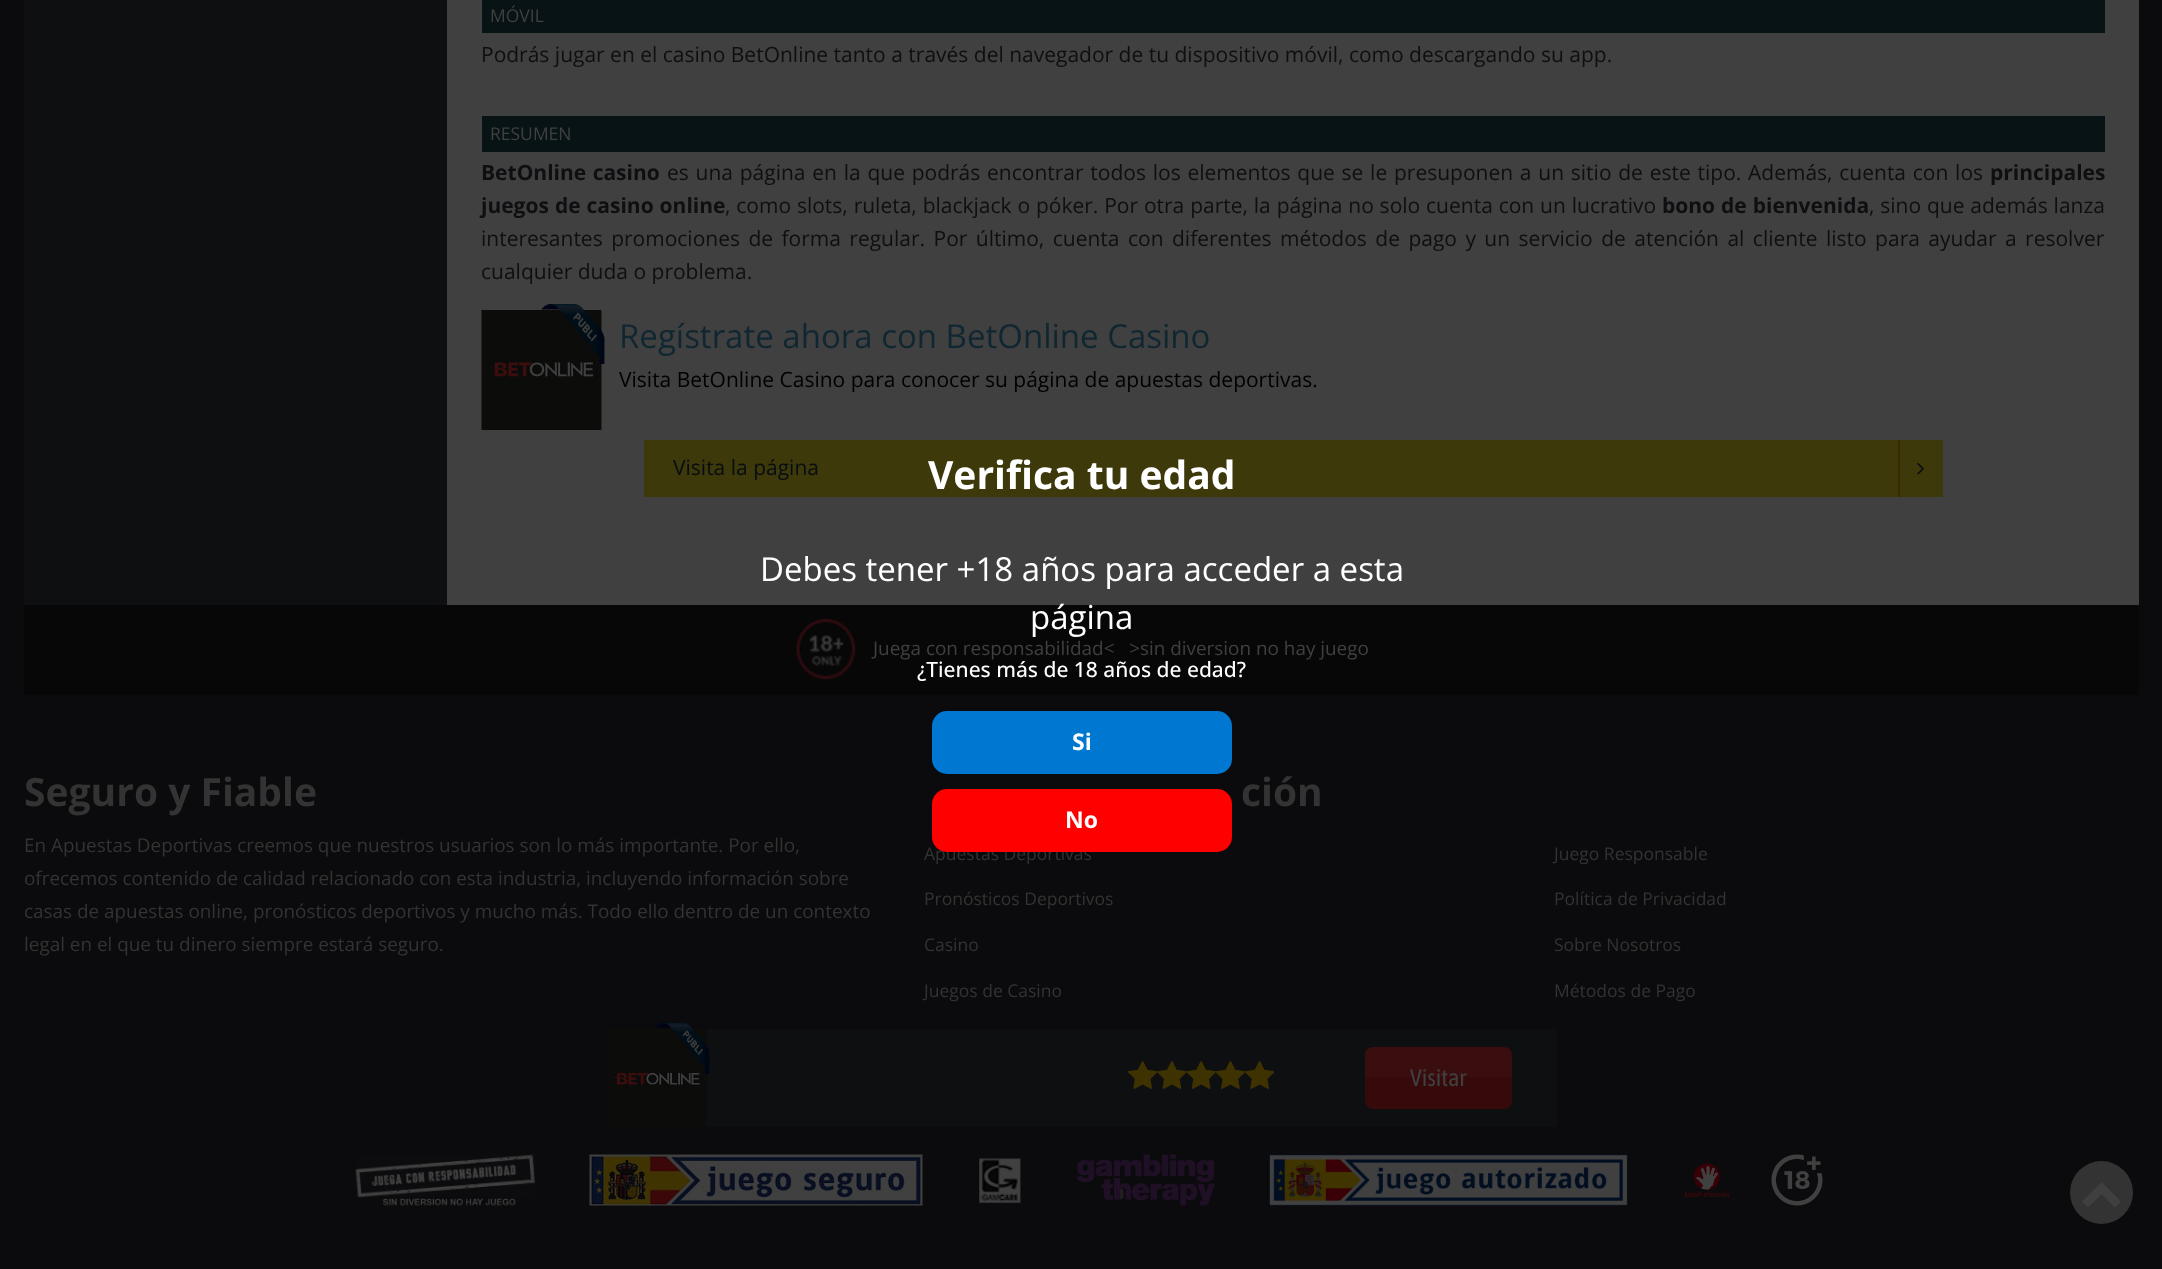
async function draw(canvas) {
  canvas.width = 2162
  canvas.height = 1269
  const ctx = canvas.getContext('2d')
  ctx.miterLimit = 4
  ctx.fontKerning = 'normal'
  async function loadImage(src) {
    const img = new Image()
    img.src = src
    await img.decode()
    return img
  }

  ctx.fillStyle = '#0b0b0d'
  ctx.fillRect(0, 0, 2162, 1269)
  ctx.fillStyle = '#0e0f11'
  ctx.fillRect(24, 0, 423, 605)
  ctx.fillStyle = '#404040'
  ctx.fillRect(447, 0, 1692, 605)
  ctx.fillStyle = '#081315'
  ctx.fillRect(482, 0, 1623, 33)
  ctx.font = '17.5px Open Sans'
  ctx.fillStyle = '#404040'
  ctx.fillText('MÓVIL', 490, 22)
  ctx.font = '21px Open Sans'
  ctx.fillStyle = '#0f0f12'
  ctx.fillText('Podrás jugar en el casino BetOnline tanto a través del navegador de tu dispositivo móvil, como descargando su app.', 481, 62)
  ctx.fillStyle = '#081315'
  ctx.fillRect(482, 116, 1623, 36)
  ctx.font = '17.5px Open Sans'
  ctx.fillStyle = '#404040'
  ctx.fillText('RESUMEN', 490, 140)
  ctx.wordSpacing = '1px'
  ctx.font = 'bold 21px Open Sans'
  ctx.fillStyle = '#0f0f12'
  ctx.fillText('BetOnline casino', 481, 180)
  ctx.wordSpacing = '1.3px'
  ctx.font = '21px Open Sans'
  ctx.fillText('es una página en la que podrás encontrar todos los elementos que se le presuponen a un sitio de este tipo. Además, cuenta con los', 667, 180)
  ctx.wordSpacing = '0px'
  ctx.font = 'bold 21px Open Sans'
  ctx.fillText('principales', 1990, 180)
  ctx.wordSpacing = '0.5px'
  ctx.fillText('juegos de casino online', 481, 213)
  ctx.wordSpacing = '0.4px'
  ctx.font = '21px Open Sans'
  ctx.fillText(', como slots, ruleta, blackjack o póker. Por otra parte, la página no solo cuenta con un lucrativo', 725, 213)
  ctx.wordSpacing = '0.5px'
  ctx.font = 'bold 21px Open Sans'
  ctx.fillText('bono de bienvenida', 1662, 213)
  ctx.wordSpacing = '0.4px'
  ctx.font = '21px Open Sans'
  ctx.fillText(', sino que además lanza', 1869, 213)
  ctx.wordSpacing = '3px'
  ctx.fillText('interesantes promociones de forma regular. Por último, cuenta con diferentes métodos de pago y un servicio de atención al cliente listo para ayudar a resolver', 481, 246)
  ctx.wordSpacing = '0px'
  ctx.fillText('cualquier duda o problema.', 481, 279)
  ctx.drawImage(await loadImage('image1.png'), 481, 310, 121, 120)
  ctx.drawImage(await loadImage('image0.png'), 541, 304, 64, 60)
  ctx.font = '33px Open Sans'
  ctx.fillStyle = '#102732'
  ctx.fillText('Regístrate ahora con BetOnline Casino', 619, 348)
  ctx.font = '21px Open Sans'
  ctx.fillStyle = '#000'
  ctx.fillText('Visita BetOnline Casino para conocer su página de apuestas deportivas.', 619, 387)
  ctx.fillStyle = '#3e390b'
  ctx.fillRect(644, 440, 1299, 57)
  ctx.fillStyle = '#070d11'
  ctx.fillText('Visita la página', 673, 475)
  ctx.fillStyle = '#372b03'
  ctx.fillRect(1898, 440, 2, 57)
  ctx.drawImage(await loadImage('image2.png'), 1917, 463, 7, 12)
  ctx.fillStyle = '#0e0f11'
  ctx.fillRect(706, 1029, 851, 98)
  ctx.drawImage(await loadImage('image4.png'), 606, 1029, 101, 100)
  ctx.drawImage(await loadImage('image3.png'), 655, 1023, 55, 51)
  ctx.drawImage(await loadImage('image5.png'), 1128, 1061, 146, 28)
  ctx.drawImage(await loadImage('image6.png'), 1128, 1061, 146, 28)
  ctx.fillStyle = '#3a0e0e'
  ctx.beginPath()
  ctx.roundRect(1365, 1047, 147, 30, [8, 8, 0, 0])
  ctx.fill()
  ctx.fillStyle = '#360a0a'
  ctx.beginPath()
  ctx.roundRect(1365, 1077, 147, 32, [0, 0, 8, 8])
  ctx.fill()
  ctx.font = '24px Asap Condensed'
  ctx.fillStyle = '#404040'
  ctx.fillText('Visitar', 1410, 1086)
  ctx.fillStyle = '#070708'
  ctx.fillRect(24, 605, 2115, 90)
  ctx.drawImage(await loadImage('image7.png'), 796, 619, 60, 60)
  ctx.font = '18.9px Open Sans'
  ctx.fillStyle = '#404040'
  ctx.fillText('Juega con responsabilidad<   >sin diversion no hay juego', 873, 655)
  ctx.font = 'bold 39px Open Sans'
  ctx.fillStyle = '#333'
  ctx.fillText('Seguro y Fiable', 24, 806)
  ctx.font = '18.9px Open Sans'
  ctx.fillText('En Apuestas Deportivas creemos que nuestros usuarios son lo más importante. Por ello,', 24, 852)
  ctx.fillText('ofrecemos contenido de calidad relacionado con esta industria, incluyendo información sobre', 24, 885)
  ctx.fillText('casas de apuestas online, pronósticos deportivos y mucho más. Todo ello dentro de un contexto', 24, 918)
  ctx.fillText('legal en el que tu dinero siempre estará seguro.', 24, 951)
  ctx.font = 'bold 39px Open Sans'
  ctx.fillText('ción', 1241, 806)
  ctx.font = '17.5px Open Sans'
  ctx.fillText('Apuestas Deportivas', 924, 860)
  ctx.fillText('Pronósticos Deportivos', 924, 905)
  ctx.fillText('Casino', 924, 951)
  ctx.fillText('Juegos de Casino', 924, 997)
  ctx.fillText('Juego Responsable', 1554, 860)
  ctx.fillText('Política de Privacidad', 1554, 905)
  ctx.fillText('Sobre Nosotros', 1554, 951)
  ctx.fillText('Métodos de Pago', 1554, 997)
  ctx.drawImage(await loadImage('image8.png'), 355, 1154, 181, 52)
  ctx.drawImage(await loadImage('image9.png'), 589, 1154, 334, 52)
  ctx.drawImage(await loadImage('image10.png'), 979, 1158, 42, 45)
  ctx.drawImage(await loadImage('image11.png'), 1077, 1154, 138, 52)
  ctx.drawImage(await loadImage('image12.png'), 1269, 1154, 359, 52)
  ctx.drawImage(await loadImage('image13.png'), 1684, 1163, 46, 34)
  ctx.drawImage(await loadImage('image14.png'), 1771, 1154, 52, 52)
  ctx.font = 'bold 39px Open Sans'
  ctx.fillStyle = '#fff'
  ctx.fillText('Verifica tu edad', 928, 489)
  ctx.font = '33px Open Sans'
  ctx.fillText('Debes tener +18 años para acceder a esta', 760, 581)
  ctx.fillText('página', 1030, 629)
  ctx.font = '500 21px Open Sans'
  ctx.fillText('¿Tienes más de 18 años de edad?', 917, 677)
  ctx.fillStyle = '#0078d1'
  ctx.beginPath()
  ctx.roundRect(932, 711, 300, 63, 15)
  ctx.fill()
  ctx.font = 'bold 23px Open Sans'
  ctx.fillStyle = '#fff'
  ctx.fillText('Si', 1072, 750)
  ctx.fillStyle = '#f00'
  ctx.beginPath()
  ctx.roundRect(932, 789, 300, 63, 15)
  ctx.fill()
  ctx.fillStyle = '#fff'
  ctx.fillText('No', 1065, 828)
  ctx.fillStyle = '#333'
  ctx.beginPath()
  ctx.arc(2101.5, 1192.5, 31.5, 0, 2 * Math.PI)
  ctx.fill()
  ctx.drawImage(await loadImage('image15.png'), 2082, 1182, 39, 25)
}

draw(document.querySelector('canvas'))
